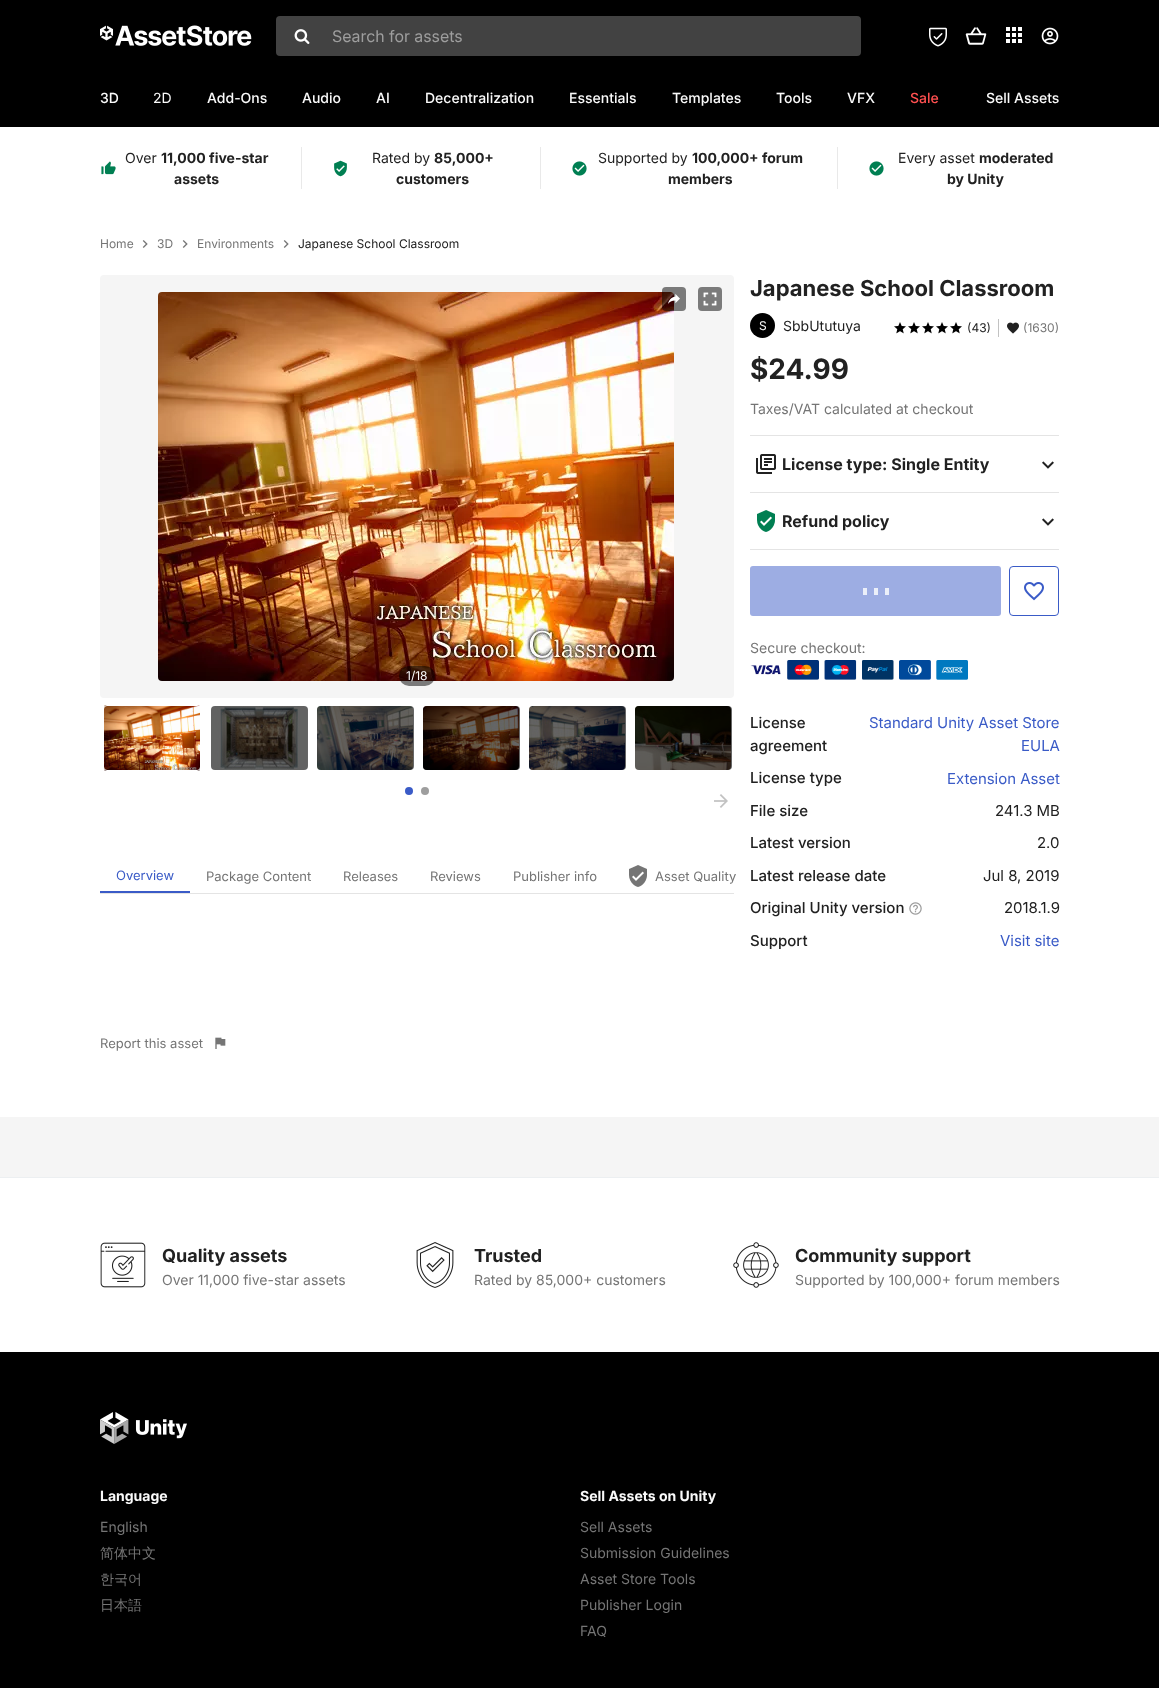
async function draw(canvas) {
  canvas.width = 1159
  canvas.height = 1688
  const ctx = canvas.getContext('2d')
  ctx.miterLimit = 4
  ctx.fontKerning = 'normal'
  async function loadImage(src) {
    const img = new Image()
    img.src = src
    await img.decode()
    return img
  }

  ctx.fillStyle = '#fff'
  ctx.fillRect(0, 0, 1159, 1688)
  ctx.fillStyle = '#000'
  ctx.fillRect(0, 0, 1159, 127)
  ctx.drawImage(await loadImage('image0.png'), 100, 25, 152, 21)
  ctx.fillStyle = '#424242'
  ctx.beginPath()
  ctx.roundRect(276, 16, 585, 40, 4)
  ctx.fill()
  ctx.drawImage(await loadImage('image1.png'), 294, 29, 16, 15)
  ctx.font = '16px "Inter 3"'
  ctx.fillStyle = '#9e9e9e'
  ctx.fillText('Search for assets', 332, 42)
  ctx.drawImage(await loadImage('image2.png'), 929, 27, 18, 20)
  ctx.drawImage(await loadImage('image3.png'), 965, 27, 22, 18)
  ctx.drawImage(await loadImage('image4.png'), 1006, 27, 16, 16)
  ctx.drawImage(await loadImage('image5.png'), 1041, 27, 18, 18)
  ctx.font = '500 14px Inter'
  ctx.fillStyle = '#fafafa'
  ctx.fillText('3D', 100, 103)
  ctx.font = '14px Inter'
  ctx.fillText('2D', 153, 103)
  ctx.font = '500 14px Inter'
  ctx.fillText('Add-Ons', 207, 103)
  ctx.fillText('Audio', 302, 103)
  ctx.fillText('AI', 376, 103)
  ctx.fillText('Decentralization', 425, 103)
  ctx.fillText('Essentials', 569, 103)
  ctx.fillText('Templates', 672, 103)
  ctx.fillText('Tools', 776, 103)
  ctx.fillText('VFX', 847, 103)
  ctx.fillStyle = '#ff5050'
  ctx.fillText('Sale', 910, 103)
  ctx.fillStyle = '#fafafa'
  ctx.fillText('Sell Assets', 986, 103)
  ctx.drawImage(await loadImage('image6.png'), 101, 161, 15, 14)
  ctx.font = '14px Inter'
  ctx.fillStyle = '#212121'
  ctx.fillText('Over', 125, 163)
  ctx.font = 'bold 14px Inter'
  ctx.fillText('11,000 five-star', 161, 163)
  ctx.fillText('assets', 174, 184)
  ctx.fillStyle = '#e9e9e9'
  ctx.fillRect(540, 147, 1, 42)
  ctx.fillRect(301, 147, 1, 42)
  ctx.drawImage(await loadImage('image7.png'), 334, 160, 13, 17)
  ctx.font = '14px Inter'
  ctx.fillStyle = '#212121'
  ctx.fillText('Rated by', 372, 163)
  ctx.font = 'bold 14px Inter'
  ctx.fillText('85,000+', 434, 163)
  ctx.fillText('customers', 396, 184)
  ctx.fillStyle = '#e9e9e9'
  ctx.fillRect(837, 147, 1, 42)
  ctx.drawImage(await loadImage('image8.png'), 572, 161, 15, 15)
  ctx.font = '14px Inter'
  ctx.fillStyle = '#212121'
  ctx.fillText('Supported by', 598, 163)
  ctx.font = 'bold 14px Inter'
  ctx.fillText('100,000+ forum', 692, 163)
  ctx.fillText('members', 668, 184)
  ctx.drawImage(await loadImage('image8.png'), 869, 161, 15, 15)
  ctx.font = '14px Inter'
  ctx.fillText('Every asset', 898, 163)
  ctx.font = 'bold 14px Inter'
  ctx.fillText('moderated', 979, 163)
  ctx.fillText('by Unity', 947, 184)
  ctx.font = '12px Inter'
  ctx.fillStyle = '#757575'
  ctx.fillText('Home', 100, 248)
  ctx.drawImage(await loadImage('image9.png'), 142, 240, 6, 8)
  ctx.fillText('3D', 157, 248)
  ctx.drawImage(await loadImage('image9.png'), 182, 240, 6, 8)
  ctx.fillText('Environments', 197, 248)
  ctx.drawImage(await loadImage('image9.png'), 283, 240, 6, 8)
  ctx.fillStyle = '#212121'
  ctx.fillText('Japanese School Classroom', 298, 248)
  ctx.fillStyle = '#f5f5f5'
  ctx.beginPath()
  ctx.roundRect(100, 275, 634, 423, 4)
  ctx.fill()
  ctx.drawImage(await loadImage('image12.png'), 158, 292, 516, 389)
  ctx.fillStyle = '#00000080'
  ctx.beginPath()
  ctx.roundRect(662, 287, 24, 24, 4)
  ctx.fill()
  ctx.drawImage(await loadImage('image10.png'), 668, 294, 12, 10)
  ctx.fillStyle = '#7b7b7b'
  ctx.beginPath()
  ctx.roundRect(698, 287, 24, 24, 4)
  ctx.fill()
  ctx.drawImage(await loadImage('image11.png'), 703, 292, 14, 14)
  ctx.fillStyle = '#00000080'
  ctx.beginPath()
  ctx.roundRect(399, 666, 36, 20, 10)
  ctx.fill()
  ctx.fillStyle = '#fafafa'
  ctx.fillText('1/18', 406, 680)
  ctx.drawImage(await loadImage('image13.png'), 104, 705, 96, 66)
  ctx.beginPath()
  ctx.roundRect(103.5, 705.5, 97, 65, 3.5)
  ctx.strokeStyle = '#fff'
  ctx.stroke()
  ctx.drawImage(await loadImage('image14.png'), 211, 706, 96, 64)
  ctx.fillStyle = '#00000099'
  ctx.beginPath()
  ctx.roundRect(211, 706, 97, 64, 4)
  ctx.fill()
  ctx.drawImage(await loadImage('image15.png'), 317, 706, 96, 64)
  ctx.beginPath()
  ctx.roundRect(317, 706, 97, 64, 4)
  ctx.fill()
  ctx.drawImage(await loadImage('image16.png'), 423, 706, 96, 64)
  ctx.beginPath()
  ctx.roundRect(423, 706, 97, 64, 4)
  ctx.fill()
  ctx.drawImage(await loadImage('image17.png'), 529, 706, 96, 64)
  ctx.beginPath()
  ctx.roundRect(529, 706, 97, 64, 4)
  ctx.fill()
  ctx.drawImage(await loadImage('image18.png'), 635, 706, 96, 64)
  ctx.beginPath()
  ctx.roundRect(635, 706, 97, 64, 4)
  ctx.fill()
  ctx.fillStyle = '#3a5bc7'
  ctx.beginPath()
  ctx.arc(409, 791, 4, 0, 2 * Math.PI)
  ctx.fill()
  ctx.fillStyle = '#9e9e9e'
  ctx.beginPath()
  ctx.arc(425, 791, 4, 0, 2 * Math.PI)
  ctx.fill()
  ctx.drawImage(await loadImage('image19.png'), 714, 794, 14, 14)
  ctx.fillStyle = '#e4e4e4'
  ctx.fillRect(100, 893, 634, 1)
  ctx.fillStyle = '#3a5bc7'
  ctx.fillRect(100, 891, 90, 2)
  ctx.font = '13px Inter'
  ctx.fillText('Overview', 116, 880)
  ctx.fillStyle = '#757575'
  ctx.fillText('Package Content', 206, 881)
  ctx.fillText('Releases', 343, 881)
  ctx.fillText('Reviews', 430, 881)
  ctx.fillText('Publisher info', 513, 881)
  ctx.drawImage(await loadImage('image20.png'), 629, 865, 18, 22)
  ctx.fillText('Asset Quality', 655, 881)
  ctx.fillText('Report this asset', 100, 1048)
  ctx.drawImage(await loadImage('image21.png'), 215, 1037, 11, 12)
  ctx.font = 'bold 22px Inter'
  ctx.fillStyle = '#212121'
  ctx.fillText('Japanese School Classroom', 750, 296)
  ctx.fillStyle = '#000'
  ctx.beginPath()
  ctx.arc(762.5, 325.5, 12.5, 0, 2 * Math.PI)
  ctx.fill()
  ctx.font = '12px Inter'
  ctx.fillStyle = '#fafafa'
  ctx.fillText('S', 759, 330)
  ctx.font = '14px Inter'
  ctx.fillStyle = '#212121'
  ctx.fillText('SbbUtutuya', 783, 331)
  ctx.drawImage(await loadImage('image22.png'), 894, 322, 12, 12)
  ctx.drawImage(await loadImage('image22.png'), 908, 322, 12, 12)
  ctx.drawImage(await loadImage('image22.png'), 922, 322, 12, 12)
  ctx.drawImage(await loadImage('image22.png'), 936, 322, 12, 12)
  ctx.drawImage(await loadImage('image22.png'), 950, 322, 12, 12)
  ctx.font = '12px Inter'
  ctx.fillText('(43)', 967, 332)
  ctx.fillStyle = '#c2c2c2'
  ctx.fillRect(998, 319, 1, 18)
  ctx.drawImage(await loadImage('image23.png'), 1007, 322, 12, 12)
  ctx.fillStyle = '#757575'
  ctx.fillText('(1630)', 1023, 332)
  ctx.font = 'bold 28px Inter'
  ctx.fillStyle = '#212121'
  ctx.fillText('$24.99', 750, 379)
  ctx.font = '14px Inter'
  ctx.fillStyle = '#757575'
  ctx.fillText('Taxes/VAT calculated at checkout', 750, 414)
  ctx.fillStyle = '#e4e4e4'
  ctx.fillRect(750, 435, 309, 1)
  ctx.drawImage(await loadImage('image24.png'), 756, 454, 20, 20)
  ctx.font = 'bold 16px Inter'
  ctx.fillStyle = '#212121'
  ctx.fillText('License type: Single Entity', 782, 470)
  ctx.drawImage(await loadImage('image25.png'), 1042, 461, 12, 8)
  ctx.fillStyle = '#e4e4e4'
  ctx.fillRect(750, 492, 309, 1)
  ctx.fillRect(750, 549, 309, 1)
  ctx.drawImage(await loadImage('image26.png'), 757, 510, 18, 22)
  ctx.fillStyle = '#212121'
  ctx.fillText('Refund policy', 782, 527)
  ctx.drawImage(await loadImage('image25.png'), 1042, 518, 12, 8)
  ctx.fillStyle = '#9dade3'
  ctx.beginPath()
  ctx.roundRect(750, 566, 251, 50, 3)
  ctx.fill()
  ctx.fillStyle = '#ebeff9'
  ctx.fillRect(863, 588, 4, 7)
  ctx.fillRect(874, 588, 4, 7)
  ctx.fillRect(885, 588, 4, 7)
  ctx.beginPath()
  ctx.roundRect(1009.5, 566.5, 49, 49, 3.5)
  ctx.strokeStyle = '#3a5bc7'
  ctx.stroke()
  ctx.drawImage(await loadImage('image27.png'), 1024, 582, 20, 19)
  ctx.font = '14px Inter'
  ctx.fillStyle = '#757575'
  ctx.fillText('Secure checkout:', 750, 653)
  ctx.drawImage(await loadImage('image28.png'), 750, 660, 218, 20)
  ctx.font = '500 15px Inter'
  ctx.fillStyle = '#212121'
  ctx.fillText('License', 750, 728)
  ctx.fillText('agreement', 750, 751)
  ctx.font = '15px "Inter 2"'
  ctx.fillStyle = '#3a5bc7'
  ctx.fillText('Standard Unity Asset Store', 869, 728)
  ctx.fillText('EULA', 1021, 751)
  ctx.font = '500 15px Inter'
  ctx.fillStyle = '#212121'
  ctx.fillText('License type', 750, 783)
  ctx.font = '15px "Inter 2"'
  ctx.fillStyle = '#3a5bc7'
  ctx.fillText('Extension Asset', 947, 784)
  ctx.font = '500 15px Inter'
  ctx.fillStyle = '#212121'
  ctx.fillText('File size', 750, 816)
  ctx.font = '15px "Inter 2"'
  ctx.fillText('241.3 MB', 995, 816)
  ctx.font = '500 15px Inter'
  ctx.fillText('Latest version', 750, 848)
  ctx.font = '15px "Inter 2"'
  ctx.fillText('2.0', 1037, 848)
  ctx.font = '500 15px Inter'
  ctx.fillText('Latest release date', 750, 881)
  ctx.font = '15px "Inter 2"'
  ctx.fillText('Jul 8, 2019', 983, 881)
  ctx.font = '500 15px Inter'
  ctx.fillText('Original Unity version', 750, 913)
  ctx.drawImage(await loadImage('image29.png'), 909, 902, 13, 13)
  ctx.font = '15px "Inter 2"'
  ctx.fillText('2018.1.9', 1004, 913)
  ctx.font = '500 15px Inter'
  ctx.fillText('Support', 750, 946)
  ctx.font = '15px "Inter 2"'
  ctx.fillStyle = '#3a5bc7'
  ctx.fillText('Visit site', 1000, 946)
  ctx.fillStyle = '#f5f5f5'
  ctx.fillRect(0, 1117, 1159, 60)
  ctx.fillStyle = '#eceff1'
  ctx.fillRect(0, 1177, 1159, 1)
  ctx.drawImage(await loadImage('image30.png'), 100, 1242, 46, 46)
  ctx.font = 'bold 18px Inter'
  ctx.fillStyle = '#212121'
  ctx.fillText('Quality assets', 162, 1262)
  ctx.font = '14px Inter'
  ctx.fillStyle = '#757575'
  ctx.fillText('Over 11,000 five-star assets', 162, 1285)
  ctx.drawImage(await loadImage('image31.png'), 416, 1242, 38, 46)
  ctx.font = 'bold 18px Inter'
  ctx.fillStyle = '#212121'
  ctx.fillText('Trusted', 474, 1262)
  ctx.font = '14px Inter'
  ctx.fillStyle = '#757575'
  ctx.fillText('Rated by 85,000+ customers', 474, 1285)
  ctx.drawImage(await loadImage('image32.png'), 733, 1242, 46, 46)
  ctx.font = 'bold 18px Inter'
  ctx.fillStyle = '#212121'
  ctx.fillText('Community support', 795, 1262)
  ctx.font = '14px Inter'
  ctx.fillStyle = '#757575'
  ctx.fillText('Supported by 100,000+ forum members', 795, 1285)
  ctx.fillStyle = '#000'
  ctx.fillRect(0, 1352, 1159, 336)
  ctx.drawImage(await loadImage('image33.png'), 100, 1412, 87, 32)
  ctx.font = 'bold 14px Inter'
  ctx.fillStyle = '#fafafa'
  ctx.fillText('Language', 100, 1501)
  ctx.font = '14px Inter'
  ctx.fillStyle = '#757575'
  ctx.fillText('English', 100, 1532)
  ctx.font = '500 14px WenQuanYi Zen Hei'
  ctx.fillText('简体中文', 100, 1558)
  ctx.fillText('한국어', 100, 1584)
  ctx.fillText('日本語', 100, 1610)
  ctx.font = 'bold 14px Inter'
  ctx.fillStyle = '#fafafa'
  ctx.fillText('Sell Assets on Unity', 580, 1501)
  ctx.font = '14px Inter'
  ctx.fillStyle = '#757575'
  ctx.fillText('Sell Assets', 580, 1532)
  ctx.fillText('Submission Guidelines', 580, 1558)
  ctx.fillText('Asset Store Tools', 580, 1584)
  ctx.fillText('Publisher Login', 580, 1610)
  ctx.fillText('FAQ', 580, 1636)
}

draw(document.querySelector('canvas'))
